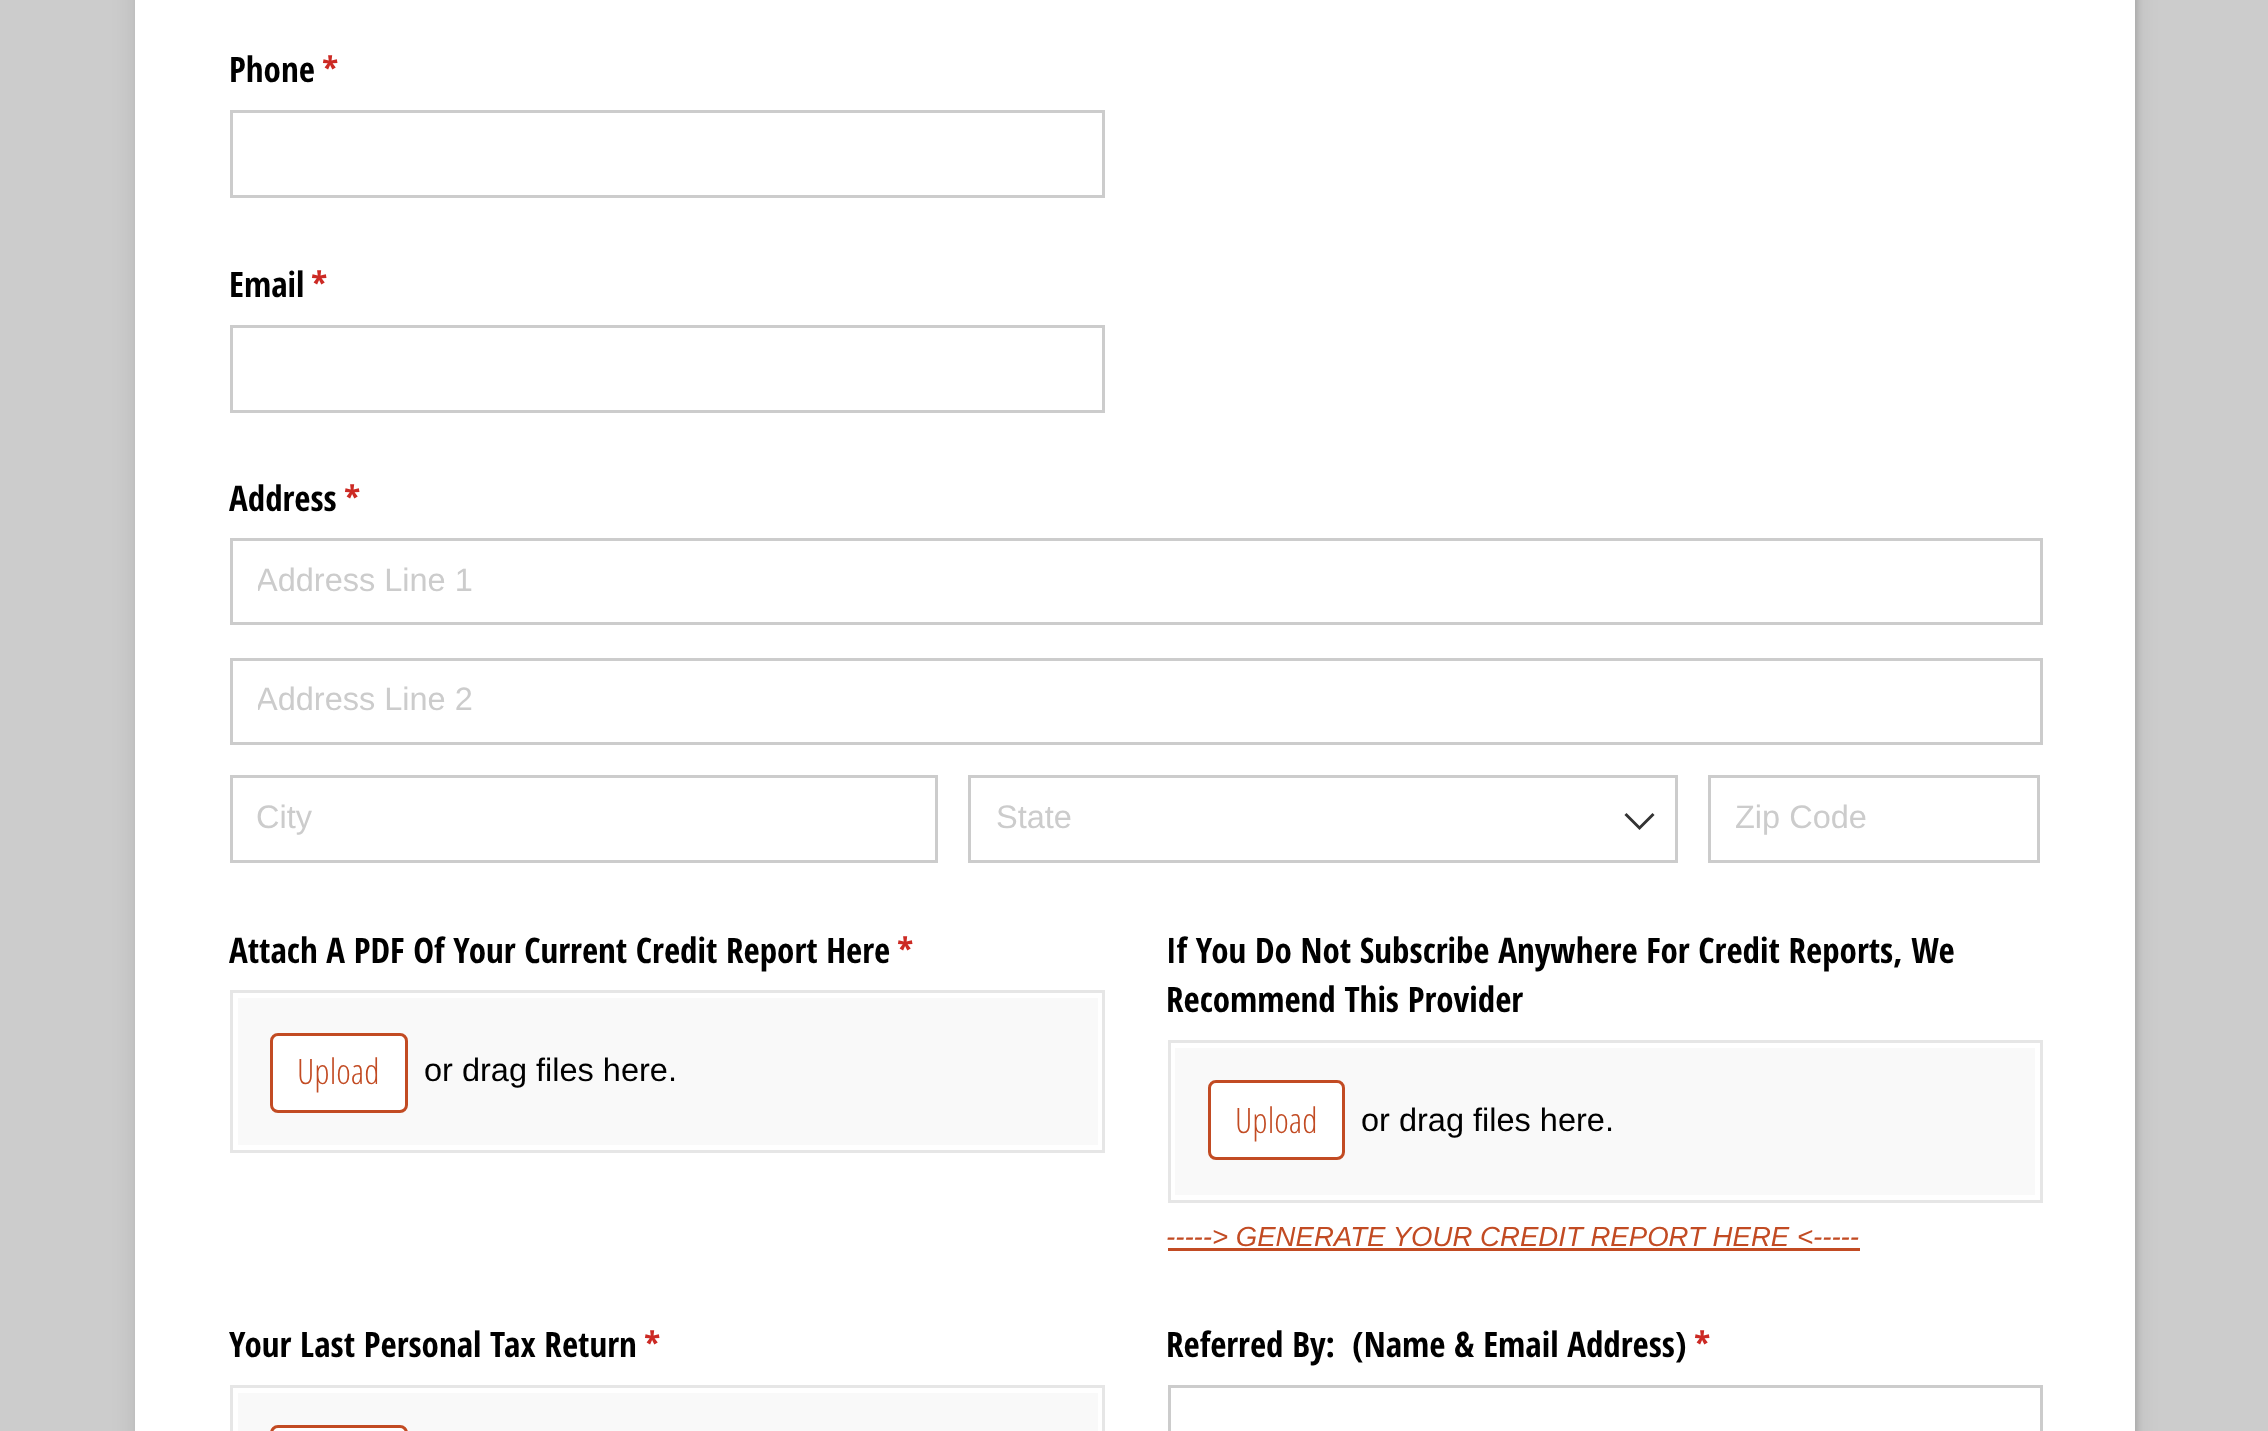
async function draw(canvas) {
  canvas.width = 2268
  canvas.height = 1431
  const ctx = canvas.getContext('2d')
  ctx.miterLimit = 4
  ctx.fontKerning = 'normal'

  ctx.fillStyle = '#ccc'
  ctx.fillRect(0, 0, 2268, 1431)
  ctx.fillStyle = '#0000001a'
  ctx.filter = 'blur(2.5px)'
  ctx.beginPath()
  ctx.rect(138, -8, 2000, 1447)
  ctx.fill()
  ctx.filter = 'none'
  ctx.filter = 'blur(12.5px)'
  ctx.beginPath()
  ctx.rect(135, -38, 2000, 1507)
  ctx.fill()
  ctx.filter = 'none'
  ctx.fillStyle = '#fff'
  ctx.fillRect(135, 0, 2000, 1431)
  ctx.font = 'bold 35.1px Open Sans Condensed'
  ctx.fillStyle = '#000'
  ctx.fillText('Phone', 229, 82)
  ctx.fillStyle = '#cc2a24'
  ctx.fillText('*', 322, 82)
  ctx.strokeStyle = '#ccc'
  ctx.lineWidth = 3
  ctx.strokeRect(231.5, 111.5, 872, 85)
  ctx.fillStyle = '#000'
  ctx.fillText('Email', 229, 297)
  ctx.fillStyle = '#cc2a24'
  ctx.fillText('*', 311, 297)
  ctx.strokeRect(231.5, 326.5, 872, 85)
  ctx.fillStyle = '#000'
  ctx.fillText('Address', 229, 511)
  ctx.fillStyle = '#cc2a24'
  ctx.fillText('*', 344, 511)
  ctx.strokeRect(231.5, 539.5, 1810, 84)
  ctx.save()
  ctx.beginPath()
  ctx.rect(258, 560, 1757, 38)
  ctx.clip()
  ctx.font = '32.5px Liberation Sans'
  ctx.fillStyle = '#ccc'
  ctx.fillText('Address Line 1', 256, 591)
  ctx.restore()
  ctx.strokeRect(231.5, 659.5, 1810, 84)
  ctx.save()
  ctx.beginPath()
  ctx.rect(258, 680, 1757, 38)
  ctx.clip()
  ctx.font = '32.5px Liberation Sans'
  ctx.fillStyle = '#ccc'
  ctx.fillText('Address Line 2', 256, 710)
  ctx.restore()
  ctx.strokeRect(231.5, 776.5, 705, 85)
  ctx.font = '32.5px Liberation Sans'
  ctx.fillStyle = '#ccc'
  ctx.fillText('City', 256, 828)
  ctx.strokeRect(969.5, 776.5, 707, 85)
  ctx.fillText('State', 996, 828)
  ctx.beginPath()
  ctx.moveTo(1626.5, 815)
  ctx.lineTo(1639.5, 828)
  ctx.lineTo(1652.5, 815)
  ctx.strokeStyle = '#333'
  ctx.lineWidth = 2.9
  ctx.lineCap = 'square'
  ctx.stroke()
  ctx.strokeStyle = '#ccc'
  ctx.lineWidth = 3
  ctx.strokeRect(1709.5, 776.5, 329, 85)
  ctx.fillText('Zip Code', 1735, 828)
  ctx.font = 'bold 35.1px Open Sans Condensed'
  ctx.fillStyle = '#000'
  ctx.fillText('Attach A PDF Of Your Current Credit Report Here', 229, 963)
  ctx.fillStyle = '#cc2a24'
  ctx.fillText('*', 897, 963)
  ctx.strokeStyle = '#e6e6e6'
  ctx.strokeRect(231.5, 991.5, 872, 160)
  ctx.fillStyle = '#f9f9f9'
  ctx.fillRect(238, 998, 860, 147)
  ctx.fillStyle = '#fff'
  ctx.beginPath()
  ctx.roundRect(271.5, 1034.5, 135, 77, 6.5)
  ctx.fill()
  ctx.strokeStyle = '#c24b23'
  ctx.stroke()
  ctx.font = '300 35.1px Open Sans Condensed'
  ctx.fillStyle = '#c24b23'
  ctx.fillText('Upload', 297, 1084)
  ctx.font = '32.5px Liberation Sans'
  ctx.fillStyle = '#000'
  ctx.fillText('or drag files here.', 424, 1081)
  ctx.font = 'bold 35.1px Open Sans Condensed'
  ctx.fillText('If You Do Not Subscribe Anywhere For Credit Reports, We', 1166, 963)
  ctx.fillText('Recommend This Provider', 1166, 1012)
  ctx.strokeStyle = '#e6e6e6'
  ctx.strokeRect(1169.5, 1041.5, 872, 160)
  ctx.fillStyle = '#f9f9f9'
  ctx.fillRect(1175, 1048, 860, 147)
  ctx.fillStyle = '#fff'
  ctx.beginPath()
  ctx.roundRect(1209.5, 1081.5, 134, 77, 6.5)
  ctx.fill()
  ctx.strokeStyle = '#c24b23'
  ctx.stroke()
  ctx.font = '300 35.1px Open Sans Condensed'
  ctx.fillStyle = '#c24b23'
  ctx.fillText('Upload', 1235, 1133)
  ctx.font = '32.5px Liberation Sans'
  ctx.fillStyle = '#000'
  ctx.fillText('or drag files here.', 1361, 1131)
  ctx.font = 'italic 27.6px Liberation Sans'
  ctx.fillStyle = '#c24b23'
  ctx.fillText('-----> GENERATE YOUR CREDIT REPORT HERE <-----', 1166, 1246)
  ctx.fillRect(1168, 1248, 692, 3)
  ctx.font = 'bold 35.1px Open Sans Condensed'
  ctx.fillStyle = '#000'
  ctx.fillText('Your Last Personal Tax Return', 229, 1357)
  ctx.fillStyle = '#cc2a24'
  ctx.fillText('*', 644, 1357)
  ctx.strokeStyle = '#e6e6e6'
  ctx.strokeRect(231.5, 1386.5, 872, 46)
  ctx.fillStyle = '#f9f9f9'
  ctx.fillRect(238, 1393, 860, 38)
  ctx.fillStyle = '#fff'
  ctx.beginPath()
  ctx.roundRect(271.5, 1426.5, 135, 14, 6.5)
  ctx.fill()
  ctx.strokeStyle = '#c24b23'
  ctx.stroke()
  ctx.fillStyle = '#000'
  ctx.fillText('Referred By:  (Name & Email Address)', 1166, 1357)
  ctx.fillStyle = '#cc2a24'
  ctx.fillText('*', 1694, 1357)
  ctx.strokeStyle = '#ccc'
  ctx.strokeRect(1169.5, 1386.5, 872, 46)
}

draw(document.querySelector('canvas'))
